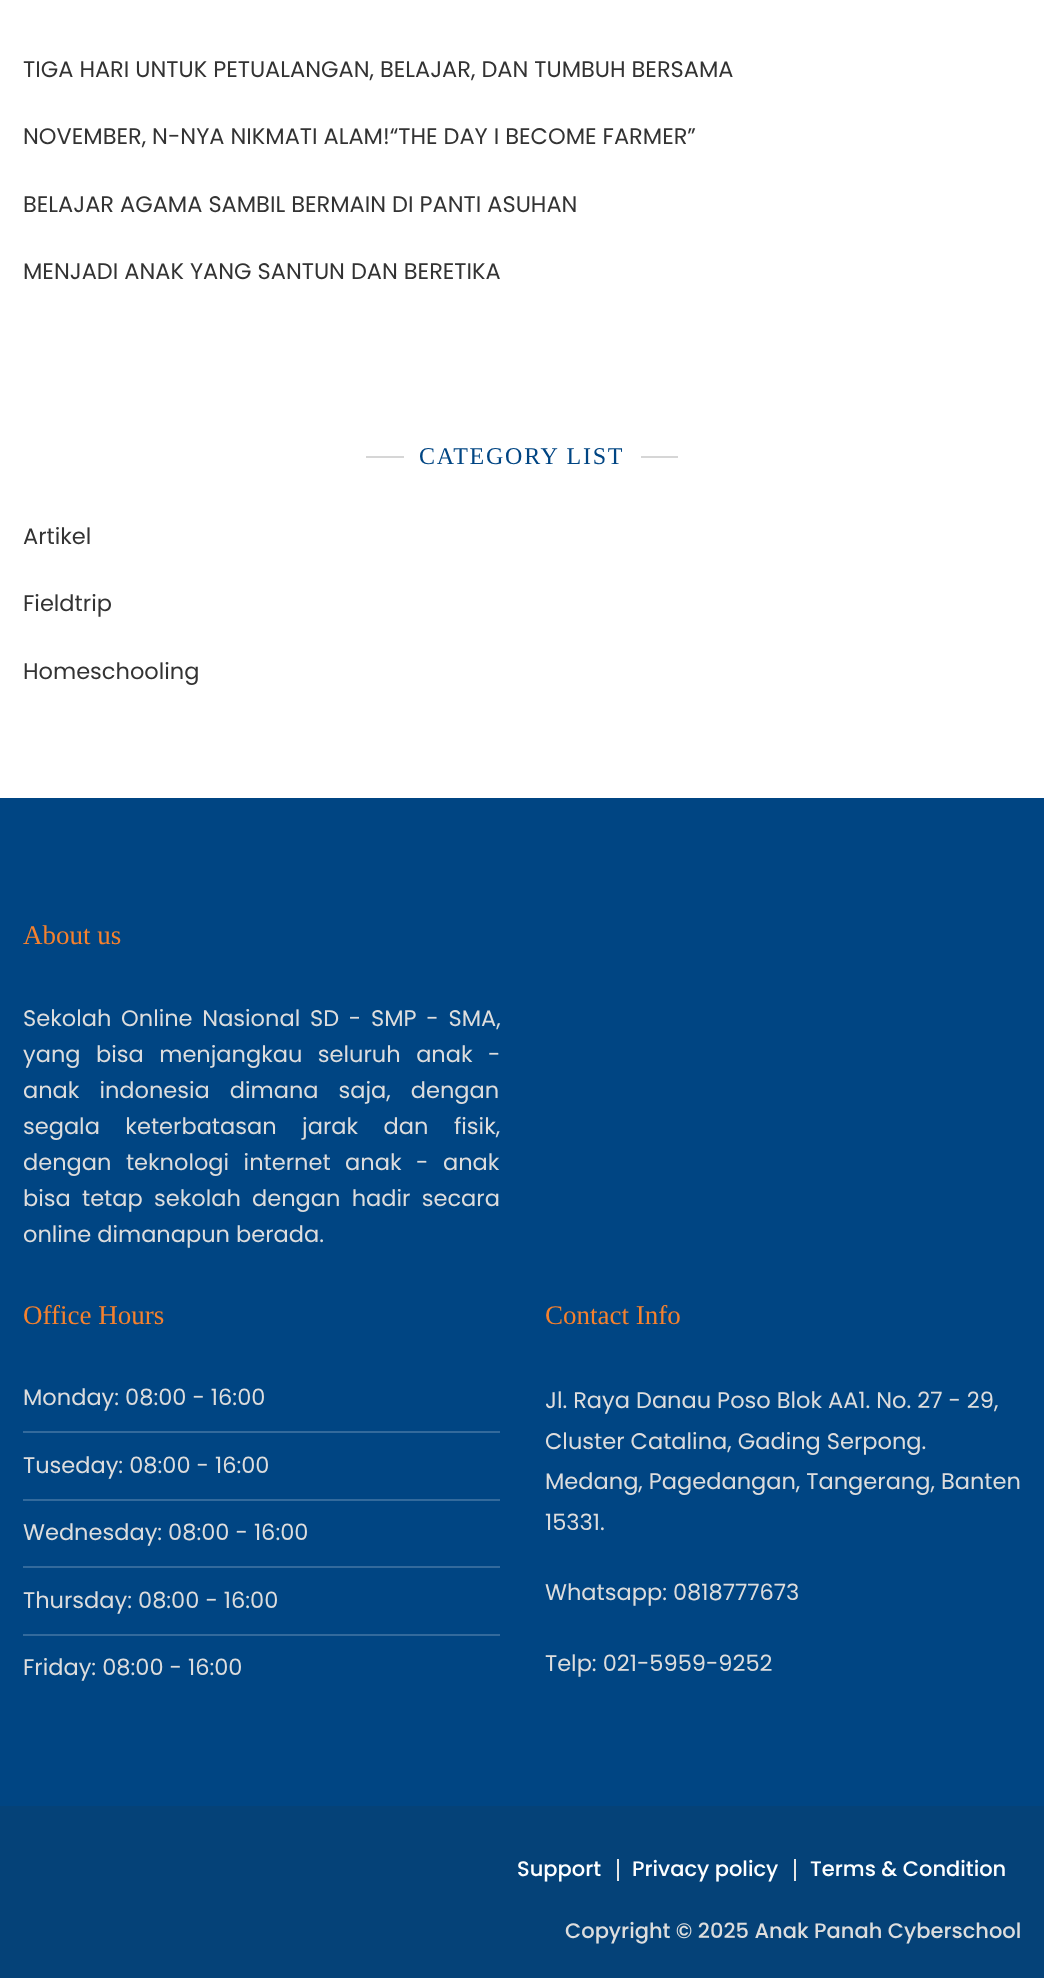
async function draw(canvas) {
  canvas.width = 1044
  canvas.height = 1978
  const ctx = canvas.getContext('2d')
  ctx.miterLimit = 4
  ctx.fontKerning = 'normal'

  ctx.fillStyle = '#fff'
  ctx.fillRect(0, 0, 1044, 1978)
  ctx.font = '22.5px Poppins'
  ctx.fillStyle = '#333'
  ctx.fillText('TIGA HARI UNTUK PETUALANGAN, BELAJAR, DAN TUMBUH BERSAMA', 23, 77)
  ctx.fillText('NOVEMBER, N-NYA NIKMATI ALAM!“THE DAY I BECOME FARMER”', 23, 144)
  ctx.fillText('BELAJAR AGAMA SAMBIL BERMAIN DI PANTI ASUHAN', 23, 212)
  ctx.fillText('MENJADI ANAK YANG SANTUN DAN BERETIKA', 23, 279)
  ctx.fillStyle = '#d6d6d6'
  ctx.fillRect(366, 456, 38, 2)
  ctx.letterSpacing = '1.75px'
  ctx.font = '24px Liberation Serif'
  ctx.fillStyle = '#004583'
  ctx.fillText('CATEGORY LIST', 419, 464)
  ctx.fillStyle = '#d6d6d6'
  ctx.fillRect(641, 456, 37, 2)
  ctx.letterSpacing = '0px'
  ctx.font = '22.5px Poppins'
  ctx.fillStyle = '#333'
  ctx.fillText('Artikel', 23, 544)
  ctx.fillText('Fieldtrip', 23, 611)
  ctx.fillText('Homeschooling', 23, 679)
  ctx.fillStyle = '#004583'
  ctx.fillRect(0, 798, 1044, 1008)
  ctx.font = '27px Liberation Serif'
  ctx.fillStyle = '#f5812d'
  ctx.fillText('About us', 23, 944)
  ctx.wordSpacing = '3.75px'
  ctx.font = '22.5px Poppins'
  ctx.fillStyle = '#ddd'
  ctx.fillText('Sekolah Online Nasional SD - SMP - SMA,', 23, 1026)
  ctx.wordSpacing = '9.5px'
  ctx.fillText('yang bisa menjangkau seluruh anak -', 23, 1062)
  ctx.wordSpacing = '14px'
  ctx.fillText('anak indonesia dimana saja, dengan', 23, 1098)
  ctx.wordSpacing = '19.5px'
  ctx.fillText('segala keterbatasan jarak dan fisik,', 23, 1134)
  ctx.wordSpacing = '8.5px'
  ctx.fillText('dengan teknologi internet anak - anak', 23, 1170)
  ctx.wordSpacing = '5.25px'
  ctx.fillText('bisa tetap sekolah dengan hadir secara', 23, 1206)
  ctx.wordSpacing = '0px'
  ctx.fillText('online dimanapun berada.', 23, 1242)
  ctx.font = '27px Liberation Serif'
  ctx.fillStyle = '#f5812d'
  ctx.fillText('Office Hours', 23, 1324)
  ctx.fillStyle = '#336a9c'
  ctx.fillRect(23, 1431, 477, 2)
  ctx.font = '22.5px Poppins'
  ctx.fillStyle = '#ddd'
  ctx.fillText('Monday: 08:00 - 16:00', 23, 1405)
  ctx.fillStyle = '#336a9c'
  ctx.fillRect(23, 1499, 477, 2)
  ctx.fillStyle = '#ddd'
  ctx.fillText('Tuseday: 08:00 - 16:00', 23, 1473)
  ctx.fillStyle = '#336a9c'
  ctx.fillRect(23, 1566, 477, 2)
  ctx.fillStyle = '#ddd'
  ctx.fillText('Wednesday: 08:00 - 16:00', 23, 1540)
  ctx.fillStyle = '#336a9c'
  ctx.fillRect(23, 1634, 477, 2)
  ctx.fillStyle = '#ddd'
  ctx.fillText('Thursday: 08:00 - 16:00', 23, 1608)
  ctx.fillText('Friday: 08:00 - 16:00', 23, 1675)
  ctx.font = '27px Liberation Serif'
  ctx.fillStyle = '#f5812d'
  ctx.fillText('Contact Info', 545, 1324)
  ctx.font = '22.5px Poppins'
  ctx.fillStyle = '#ddd'
  ctx.fillText('Jl. Raya Danau Poso Blok AA1. No. 27 - 29,', 545, 1408)
  ctx.fillText('Cluster Catalina, Gading Serpong.', 545, 1449)
  ctx.fillText('Medang, Pagedangan, Tangerang, Banten', 545, 1489)
  ctx.fillText('15331.', 545, 1530)
  ctx.fillText('Whatsapp: 0818777673', 545, 1600)
  ctx.fillText('Telp: 021-5959-9252', 545, 1671)
  ctx.fillStyle = '#054278'
  ctx.fillRect(0, 1806, 1044, 172)
  ctx.font = '500 21px Poppins'
  ctx.fillStyle = '#fff'
  ctx.fillText('Support', 517, 1876)
  ctx.fillStyle = '#e6e6e6'
  ctx.fillRect(617, 1859, 2, 22)
  ctx.fillStyle = '#fff'
  ctx.fillText('Privacy policy', 632, 1876)
  ctx.fillStyle = '#e6e6e6'
  ctx.fillRect(794, 1859, 2, 22)
  ctx.fillStyle = '#fff'
  ctx.fillText('Terms & Condition', 810, 1876)
  ctx.fillStyle = '#ddd'
  ctx.fillText('Copyright © 2025 Anak Panah Cyberschool', 565, 1938)
}

draw(document.querySelector('canvas'))
